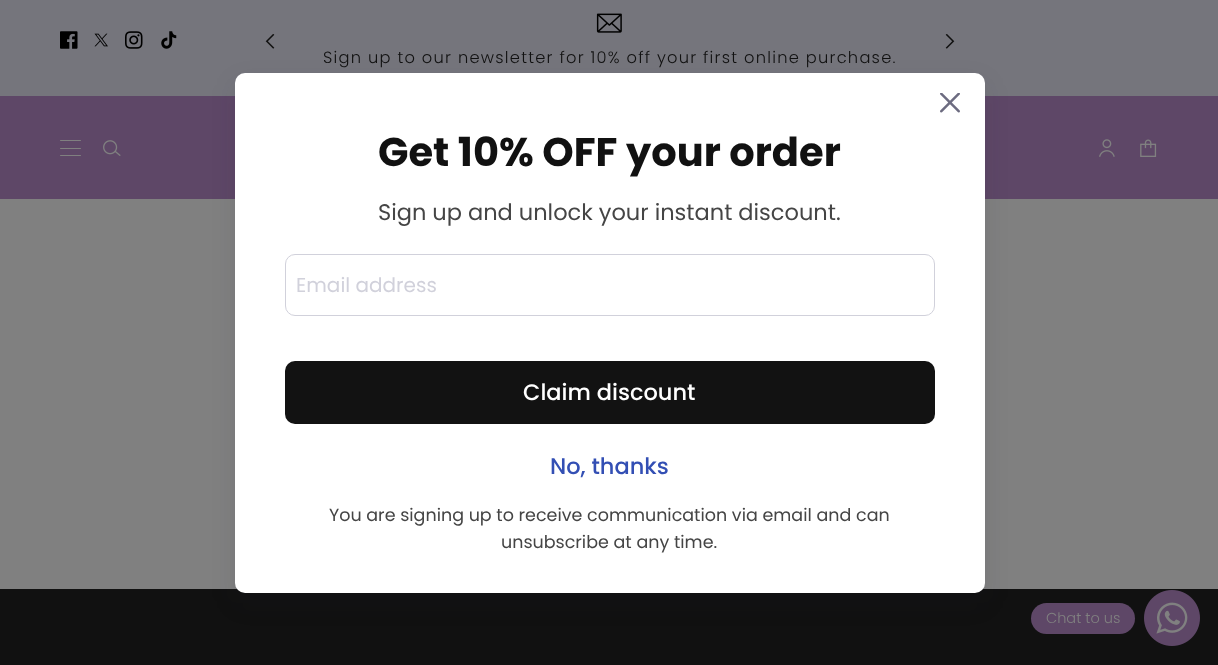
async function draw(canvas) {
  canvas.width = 1218
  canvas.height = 665
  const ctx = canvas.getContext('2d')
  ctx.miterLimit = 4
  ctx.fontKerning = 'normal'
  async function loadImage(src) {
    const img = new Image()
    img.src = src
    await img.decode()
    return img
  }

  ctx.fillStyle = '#808080'
  ctx.fillRect(0, 0, 1218, 665)
  ctx.fillStyle = '#75757c'
  ctx.fillRect(0, 0, 1218, 96)
  ctx.drawImage(await loadImage('image0.png'), 60, 31, 18, 18)
  ctx.drawImage(await loadImage('image1.png'), 94, 33, 14, 14)
  ctx.drawImage(await loadImage('image2.png'), 125, 31, 18, 18)
  ctx.drawImage(await loadImage('image3.png'), 161, 31, 16, 18)
  ctx.drawImage(await loadImage('image4.png'), 265, 34, 10, 15)
  ctx.drawImage(await loadImage('image5.png'), 945, 34, 10, 15)
  ctx.drawImage(await loadImage('image6.png'), 596, 13, 26, 20)
  ctx.letterSpacing = '1.25px'
  ctx.font = '300 16.25px Poppins'
  ctx.fillStyle = '#111'
  ctx.fillText('Sign up to our newsletter for 10% off your first online purchase.', 323, 63)
  ctx.fillStyle = '#5e4767'
  ctx.fillRect(0, 96, 1218, 103)
  ctx.fillStyle = '#808080'
  ctx.beginPath()
  ctx.roundRect(60, 140, 21, 1, 0.5)
  ctx.fill()
  ctx.beginPath()
  ctx.roundRect(60, 148, 21, 1, 0.5)
  ctx.fill()
  ctx.beginPath()
  ctx.roundRect(60, 155, 21, 1, 0.5)
  ctx.fill()
  ctx.drawImage(await loadImage('image7.png'), 103, 140, 18, 16)
  ctx.drawImage(await loadImage('image8.png'), 1099, 139, 16, 18)
  ctx.drawImage(await loadImage('image9.png'), 1140, 139, 17, 18)
  ctx.fillStyle = '#111'
  ctx.fillRect(0, 589, 1218, 76)
  ctx.fillStyle = '#1211271a'
  ctx.filter = 'blur(12.5px)'
  ctx.beginPath()
  ctx.roundRect(235, 83, 750, 520, 10)
  ctx.fill()
  ctx.filter = 'none'
  ctx.fillStyle = '#fff'
  ctx.beginPath()
  ctx.roundRect(235, 73, 750, 520, 10)
  ctx.fill()
  ctx.drawImage(await loadImage('image10.png'), 940, 93, 20, 20)
  ctx.letterSpacing = '0px'
  ctx.font = 'bold 40px Poppins'
  ctx.fillStyle = '#111'
  ctx.fillText('Get 10% OFF your order', 378, 166)
  ctx.font = '22.5px Poppins'
  ctx.fillStyle = '#454545'
  ctx.fillText('Sign up and unlock your instant discount.', 378, 220)
  ctx.beginPath()
  ctx.roundRect(285.5, 254.5, 649, 61, 9.5)
  ctx.strokeStyle = '#d1d1db'
  ctx.stroke()
  ctx.font = '20px Poppins'
  ctx.fillStyle = '#d1d1db'
  ctx.fillText('Email address', 296, 292)
  ctx.fillStyle = '#121212'
  ctx.beginPath()
  ctx.roundRect(285, 361, 650, 63, 10)
  ctx.fill()
  ctx.font = '500 22.5px Poppins'
  ctx.fillStyle = '#fff'
  ctx.fillText('Claim discount', 523, 400)
  ctx.fillStyle = '#334fb4'
  ctx.fillText('No, thanks', 550, 474)
  ctx.font = '17.5px Poppins'
  ctx.fillStyle = '#454545'
  ctx.fillText('You are signing up to receive communication via email and can', 329, 521)
  ctx.fillText('unsubscribe at any time.', 501, 548)
  ctx.fillStyle = '#5e4767'
  ctx.beginPath()
  ctx.roundRect(1031, 603, 104, 31, 15.5)
  ctx.fill()
  ctx.font = '300 14.5px Poppins'
  ctx.fillStyle = '#808080'
  ctx.fillText('Chat to us', 1046, 623)
  ctx.drawImage(await loadImage('image11.png'), 1144, 590, 56, 56)
}

draw(document.querySelector('canvas'))
